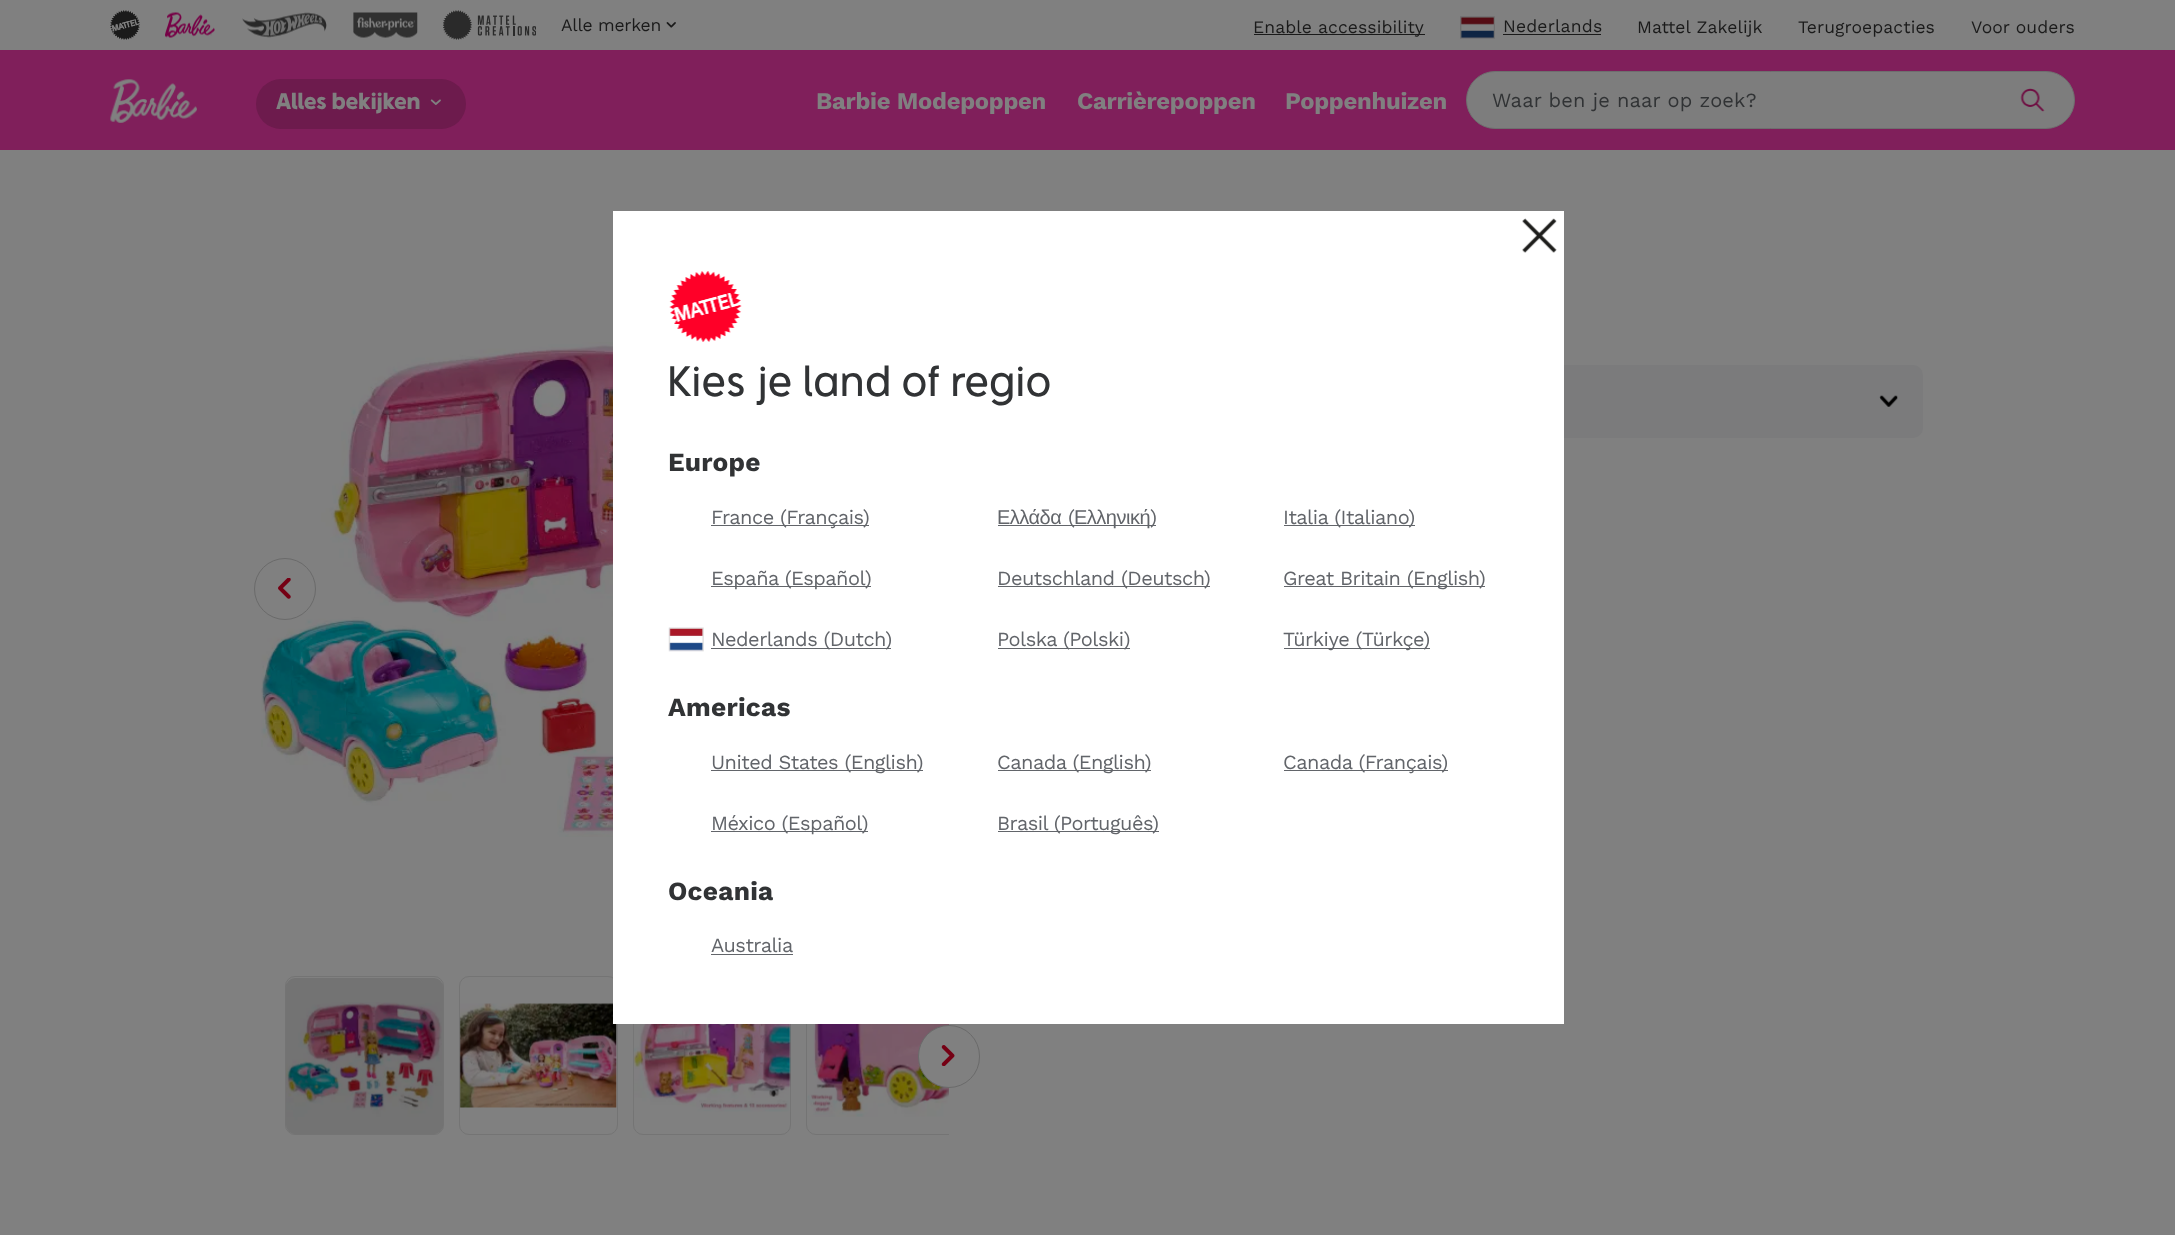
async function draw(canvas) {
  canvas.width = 2175
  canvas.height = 1235
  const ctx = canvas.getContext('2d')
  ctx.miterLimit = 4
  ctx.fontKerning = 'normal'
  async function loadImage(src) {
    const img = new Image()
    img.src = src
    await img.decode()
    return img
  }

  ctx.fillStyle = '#808080'
  ctx.fillRect(0, 0, 2175, 1235)
  ctx.drawImage(await loadImage('image0.png'), 110, 10, 30, 30)
  ctx.drawImage(await loadImage('image1.png'), 165, 12, 50, 26)
  ctx.drawImage(await loadImage('image2.png'), 242, 12, 85, 26)
  ctx.drawImage(await loadImage('image3.png'), 353, 12, 65, 26)
  ctx.drawImage(await loadImage('image4.png'), 443, 10, 93, 30)
  ctx.letterSpacing = '-0.25px'
  ctx.font = '17.5px Work Sans'
  ctx.fillStyle = '#1a1a1a'
  ctx.fillText('Alle merken', 561, 31)
  ctx.drawImage(await loadImage('image5.png'), 666, 22, 10, 6)
  ctx.fillRect(1254, 34, 171, 1)
  ctx.letterSpacing = '0.1px'
  ctx.fillText('Enable accessibility', 1253, 33)
  ctx.drawImage(await loadImage('image6.png'), 1460, 16, 35, 23)
  ctx.letterSpacing = '0.2px'
  ctx.fillText('Nederlands', 1503, 32)
  ctx.fillRect(1503, 34, 98, 1)
  ctx.letterSpacing = '0.1px'
  ctx.fillText('Mattel Zakelijk', 1637, 33)
  ctx.fillText('Terugroepacties', 1798, 33)
  ctx.fillText('Voor ouders', 1971, 33)
  ctx.fillStyle = '#801f5b'
  ctx.fillRect(0, 50, 2175, 100)
  ctx.drawImage(await loadImage('image7.png'), 110, 79, 87, 44)
  ctx.fillStyle = '#6d1b4d'
  ctx.beginPath()
  ctx.roundRect(256, 79, 210, 50, 25)
  ctx.fill()
  ctx.letterSpacing = '0.25px'
  ctx.font = 'bold 23.75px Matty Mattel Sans'
  ctx.fillStyle = '#808080'
  ctx.fillText('Alles bekijken', 276, 109)
  ctx.drawImage(await loadImage('image8.png'), 430, 99, 11, 6)
  ctx.letterSpacing = '-0.25px'
  ctx.font = 'bold 23.75px Work Sans'
  ctx.fillText('Barbie Modepoppen', 816, 109)
  ctx.fillText('Carrièrepoppen', 1077, 109)
  ctx.fillText('Poppenhuizen', 1285, 109)
  ctx.fillStyle = '#7d7d7d'
  ctx.beginPath()
  ctx.roundRect(1466.5, 71.5, 608, 57, 28.5)
  ctx.fill()
  ctx.strokeStyle = '#6e6e6e'
  ctx.stroke()
  ctx.letterSpacing = '0.2px'
  ctx.font = '20px Work Sans'
  ctx.fillStyle = '#313335'
  ctx.fillText('Waar ben je naar op zoek?', 1492, 107)
  ctx.drawImage(await loadImage('image9.png'), 2020, 88, 25, 24)
  ctx.drawImage(await loadImage('image10.png'), 261, 342, 352, 495)
  ctx.beginPath()
  ctx.arc(285, 589, 30.5, 0, 2 * Math.PI)
  ctx.strokeStyle = '#6a6a6a'
  ctx.stroke()
  ctx.drawImage(await loadImage('image11.png'), 278, 578, 13, 21)
  ctx.beginPath()
  ctx.roundRect(285.5, 976.5, 158, 158, 9.5)
  ctx.strokeStyle = '#747474'
  ctx.stroke()
  ctx.drawImage(await loadImage('image12.png'), 286, 1002, 156, 132)
  ctx.fillStyle = '#0000001a'
  ctx.beginPath()
  ctx.roundRect(286, 978, 157, 156, 9)
  ctx.fill()
  ctx.beginPath()
  ctx.roundRect(459.5, 976.5, 158, 158, 9.5)
  ctx.stroke()
  ctx.drawImage(await loadImage('image13.png'), 459, 1003, 158, 105)
  ctx.beginPath()
  ctx.roundRect(633.5, 976.5, 157, 158, 9.5)
  ctx.stroke()
  ctx.drawImage(await loadImage('image14.png'), 633, 1024, 158, 88)
  ctx.save()
  ctx.beginPath()
  ctx.rect(285, 976, 664, 159)
  ctx.clip()
  ctx.beginPath()
  ctx.roundRect(806.5, 976.5, 158, 158, 9.5)
  ctx.stroke()
  ctx.restore()
  ctx.drawImage(await loadImage('image15.png'), 807, 1024, 142, 93)
  ctx.fillStyle = '#808080'
  ctx.beginPath()
  ctx.roundRect(918.5, 1025.5, 61, 62, 30.5)
  ctx.fill()
  ctx.strokeStyle = '#6a6a6a'
  ctx.stroke()
  ctx.drawImage(await loadImage('image16.png'), 941, 1045, 14, 21)
  ctx.fillStyle = '#7b7b7c'
  ctx.beginPath()
  ctx.roundRect(1140, 365, 783, 73, 10)
  ctx.fill()
  ctx.drawImage(await loadImage('image17.png'), 1879, 395, 19, 12)
  ctx.fillStyle = '#fff'
  ctx.fillRect(613, 211, 951, 813)
  ctx.drawImage(await loadImage('image18.png'), 1522, 218, 35, 35)
  ctx.drawImage(await loadImage('image19.png'), 669, 271, 73, 71)
  ctx.letterSpacing = '0.4px'
  ctx.font = '45px Matty Mattel Sans'
  ctx.fillStyle = '#313335'
  ctx.fillText('Kies je land of regio', 668, 396)
  ctx.letterSpacing = '0.25px'
  ctx.font = 'bold 26.25px Work Sans'
  ctx.fillText('Europe', 668, 471)
  ctx.fillStyle = '#62656a'
  ctx.fillRect(711, 525, 158, 1)
  ctx.letterSpacing = '-0.5px'
  ctx.font = '20px Work Sans'
  ctx.fillText('France (Français)', 711, 524)
  ctx.font = '20px Liberation Sans'
  ctx.fillText('Ελλάδα', 997, 524)
  ctx.fillRect(998, 525, 158, 1)
  ctx.font = '20px Work Sans'
  ctx.fillText('(', 1068, 524)
  ctx.font = '20px Liberation Sans'
  ctx.fillText('Ελληνική', 1074, 524)
  ctx.font = '20px Work Sans'
  ctx.fillText(')', 1150, 524)
  ctx.fillRect(1284, 525, 131, 1)
  ctx.fillText('Italia (Italiano)', 1283, 524)
  ctx.fillRect(711, 586, 160, 1)
  ctx.fillText('España (Español)', 711, 585)
  ctx.fillRect(998, 586, 212, 1)
  ctx.fillText('Deutschland (Deutsch)', 997, 585)
  ctx.fillRect(1284, 586, 201, 1)
  ctx.fillText('Great Britain (English)', 1283, 585)
  ctx.drawImage(await loadImage('image20.png'), 668, 627, 36, 25)
  ctx.fillRect(711, 648, 180, 1)
  ctx.fillText('Nederlands (Dutch)', 711, 646)
  ctx.fillRect(998, 648, 132, 1)
  ctx.fillText('Polska (Polski)', 997, 646)
  ctx.fillRect(1284, 648, 146, 1)
  ctx.fillText('Türkiye (Türkçe)', 1283, 646)
  ctx.letterSpacing = '0.25px'
  ctx.font = 'bold 26.25px Work Sans'
  ctx.fillStyle = '#313335'
  ctx.fillText('Americas', 668, 716)
  ctx.fillStyle = '#62656a'
  ctx.fillRect(711, 770, 212, 1)
  ctx.letterSpacing = '-0.5px'
  ctx.font = '20px Work Sans'
  ctx.fillText('United States (English)', 711, 769)
  ctx.fillRect(998, 770, 153, 1)
  ctx.fillText('Canada (English)', 997, 769)
  ctx.fillRect(1284, 770, 164, 1)
  ctx.fillText('Canada (Français)', 1283, 769)
  ctx.fillRect(711, 831, 157, 1)
  ctx.fillText('México (Español)', 711, 830)
  ctx.fillRect(998, 831, 161, 1)
  ctx.fillText('Brasil (Português)', 997, 830)
  ctx.letterSpacing = '0.25px'
  ctx.font = 'bold 26.25px Work Sans'
  ctx.fillStyle = '#313335'
  ctx.fillText('Oceania', 668, 900)
  ctx.letterSpacing = '-0.5px'
  ctx.font = '20px Work Sans'
  ctx.fillStyle = '#62656a'
  ctx.fillText('Australia', 711, 952)
  ctx.fillRect(711, 954, 82, 1)
}

draw(document.querySelector('canvas'))
